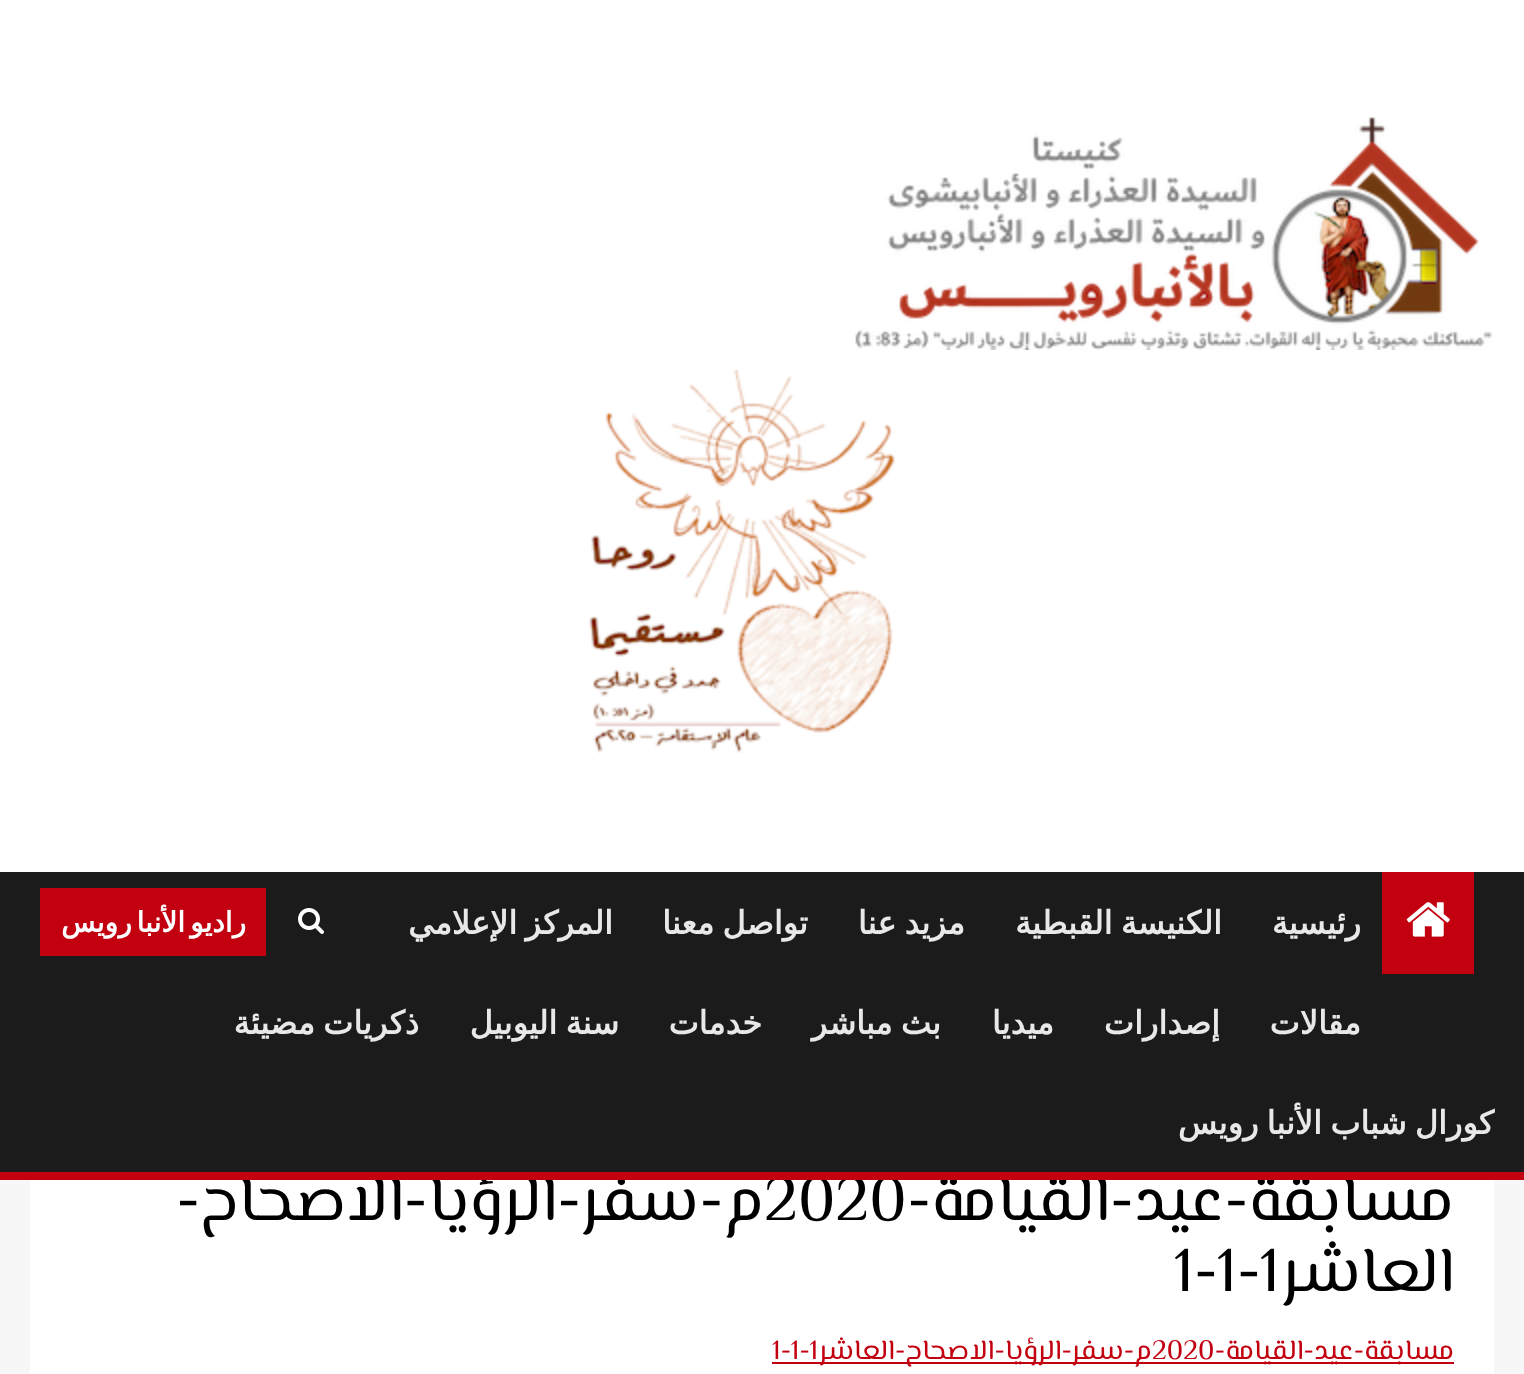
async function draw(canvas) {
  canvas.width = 1524
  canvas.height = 1374
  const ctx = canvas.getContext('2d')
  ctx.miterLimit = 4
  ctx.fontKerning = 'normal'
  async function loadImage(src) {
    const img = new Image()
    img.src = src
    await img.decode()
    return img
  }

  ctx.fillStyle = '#f7f7f7'
  ctx.fillRect(0, 0, 1524, 1374)
  ctx.fillStyle = '#fff'
  ctx.fillRect(0, 0, 1524, 872)
  ctx.drawImage(await loadImage('image0.png'), 855, 116, 638, 234)
  ctx.drawImage(await loadImage('image1.png'), 589, 370, 306, 383)
  ctx.fillRect(30, 1180, 1464, 194)
  ctx.direction = 'rtl'
  ctx.font = '64px El Messiri'
  ctx.fillStyle = '#000'
  ctx.fillText('م-سفر-الرؤيا-الاصحاح-', 764, 1220)
  ctx.fillStyle = '#1b1b1b'
  ctx.fillRect(0, 872, 1524, 300)
  ctx.fillStyle = '#000'
  ctx.fillText('مسابقة-عيد-القيامة-', 1454, 1220)
  ctx.direction = 'ltr'
  ctx.fillText('2020', 764, 1220)
  ctx.fillStyle = '#c30010'
  ctx.fillRect(0, 1172, 1524, 8)
  ctx.fillRect(1382, 872, 92, 102)
  ctx.drawImage(await loadImage('image2.png'), 1406, 902, 44, 35)
  ctx.direction = 'rtl'
  ctx.font = 'bold 32px DejaVu Sans'
  ctx.fillStyle = '#e8e8e8'
  ctx.fillText('رئيسية', 1361, 934)
  ctx.wordSpacing = '-2px'
  ctx.fillText('الكنيسة القبطية', 1222, 934)
  ctx.fillText('مزيد عنا', 965, 934)
  ctx.fillText('تواصل معنا', 808, 934)
  ctx.fillText('المركز الإعلامي', 613, 934)
  ctx.wordSpacing = '0px'
  ctx.fillText('مقالات', 1361, 1034)
  ctx.fillText('إصدارات', 1220, 1034)
  ctx.fillText('ميديا', 1054, 1034)
  ctx.wordSpacing = '-2px'
  ctx.fillText('بث مباشر', 941, 1034)
  ctx.wordSpacing = '0px'
  ctx.fillText('خدمات', 762, 1034)
  ctx.wordSpacing = '-2px'
  ctx.fillText('سنة اليوبيل', 619, 1034)
  ctx.fillText('ذكريات مضيئة', 419, 1034)
  ctx.fillText('كورال شباب الأنبا رويس', 1494, 1134)
  ctx.drawImage(await loadImage('image3.png'), 298, 908, 26, 26)
  ctx.fillStyle = '#c30010'
  ctx.fillRect(40, 888, 226, 68)
  ctx.wordSpacing = '-4px'
  ctx.font = 'bold 28px DejaVu Sans'
  ctx.fillStyle = '#fff'
  ctx.fillText('راديو الأنبا رويس', 246, 932)
  ctx.wordSpacing = '0px'
  ctx.font = '64px El Messiri'
  ctx.fillStyle = '#000'
  ctx.fillText('العاشر', 1454, 1291)
  ctx.direction = 'ltr'
  ctx.fillText('1-1-1', 1174, 1291)
  ctx.fillStyle = '#c30010'
  ctx.fillRect(772, 1362, 682, 2)
  ctx.direction = 'rtl'
  ctx.font = '28px El Messiri'
  ctx.fillText('مسابقة-عيد-القيامة-', 1454, 1359)
  ctx.direction = 'ltr'
  ctx.fillText('2020', 1152, 1359)
  ctx.direction = 'rtl'
  ctx.fillText('م-سفر-الرؤيا-الاصحاح-العاشر', 1152, 1359)
  ctx.direction = 'ltr'
  ctx.fillText('1-1-1', 772, 1359)
}

draw(document.querySelector('canvas'))
